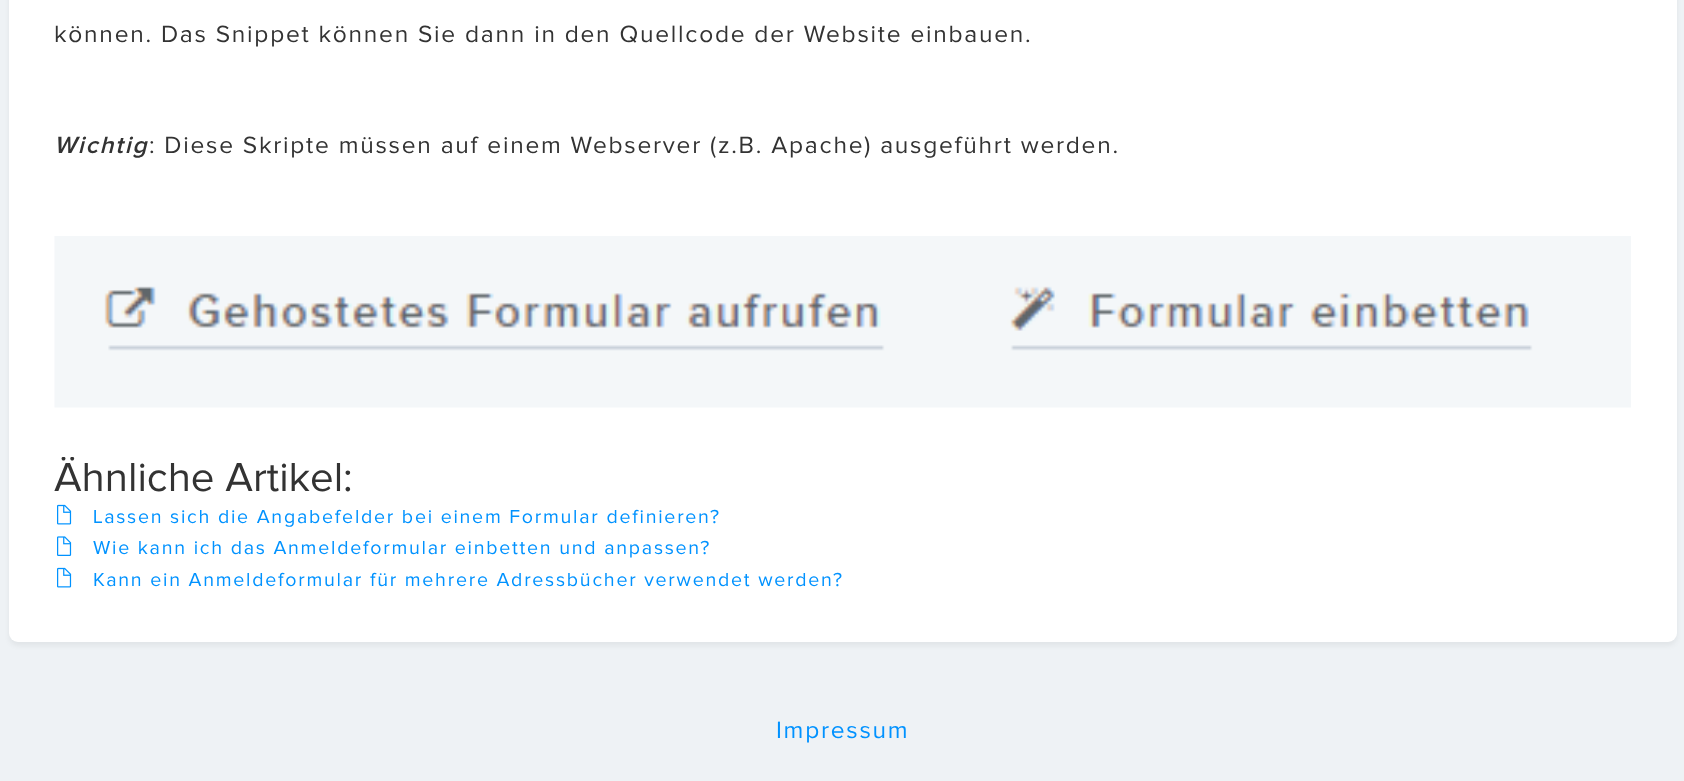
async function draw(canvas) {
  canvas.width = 1684
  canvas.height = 781
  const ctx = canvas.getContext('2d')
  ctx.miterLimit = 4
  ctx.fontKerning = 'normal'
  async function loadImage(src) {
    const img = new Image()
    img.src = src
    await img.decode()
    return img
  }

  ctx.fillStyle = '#eef2f5'
  ctx.fillRect(0, 0, 1684, 781)
  ctx.fillStyle = '#0000000d'
  ctx.filter = 'blur(2.5px)'
  ctx.beginPath()
  ctx.roundRect(9, -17, 1668, 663, 9)
  ctx.fill()
  ctx.filter = 'none'
  ctx.fillStyle = '#fff'
  ctx.beginPath()
  ctx.roundRect(9, -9, 1668, 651, 9)
  ctx.fill()
  ctx.letterSpacing = '1.75px'
  ctx.font = '24.5px Proxima Nova'
  ctx.fillStyle = '#333'
  ctx.fillText('können. Das Snippet können Sie dann in den Quellcode der Website einbauen.', 54, 42)
  ctx.font = 'italic 600 24.5px Proxima Nova'
  ctx.fillText('Wichtig', 54, 153)
  ctx.font = '24.5px Proxima Nova'
  ctx.fillText(': Diese Skripte müssen auf einem Webserver (z.B. Apache) ausgeführt werden.', 149, 153)
  ctx.drawImage(await loadImage('image0.png'), 54, 236, 1577, 172)
  ctx.save()
  ctx.beginPath()
  ctx.rect(54, 457, 1577, 45)
  ctx.clip()
  ctx.letterSpacing = '0px'
  ctx.font = '42px Proxima Nova'
  ctx.fillText('Ähnliche Artikel:', 54, 491)
  ctx.restore()
  ctx.drawImage(await loadImage('image1.png'), 57, 504, 15, 21)
  ctx.font = '19.6px Proxima Nova'
  ctx.fillStyle = '#0092ff'
  ctx.fillText('Lassen sich die Angabefelder bei einem Formular definieren?', 93, 523)
  ctx.drawImage(await loadImage('image2.png'), 57, 536, 15, 20)
  ctx.fillText('Wie kann ich das Anmeldeformular einbetten und anpassen?', 93, 554)
  ctx.drawImage(await loadImage('image1.png'), 57, 567, 15, 21)
  ctx.fillText('Kann ein Anmeldeformular für mehrere Adressbücher verwendet werden?', 93, 586)
  ctx.font = '24.5px Proxima Nova'
  ctx.fillText('Impressum', 776, 738)
}

draw(document.querySelector('canvas'))
